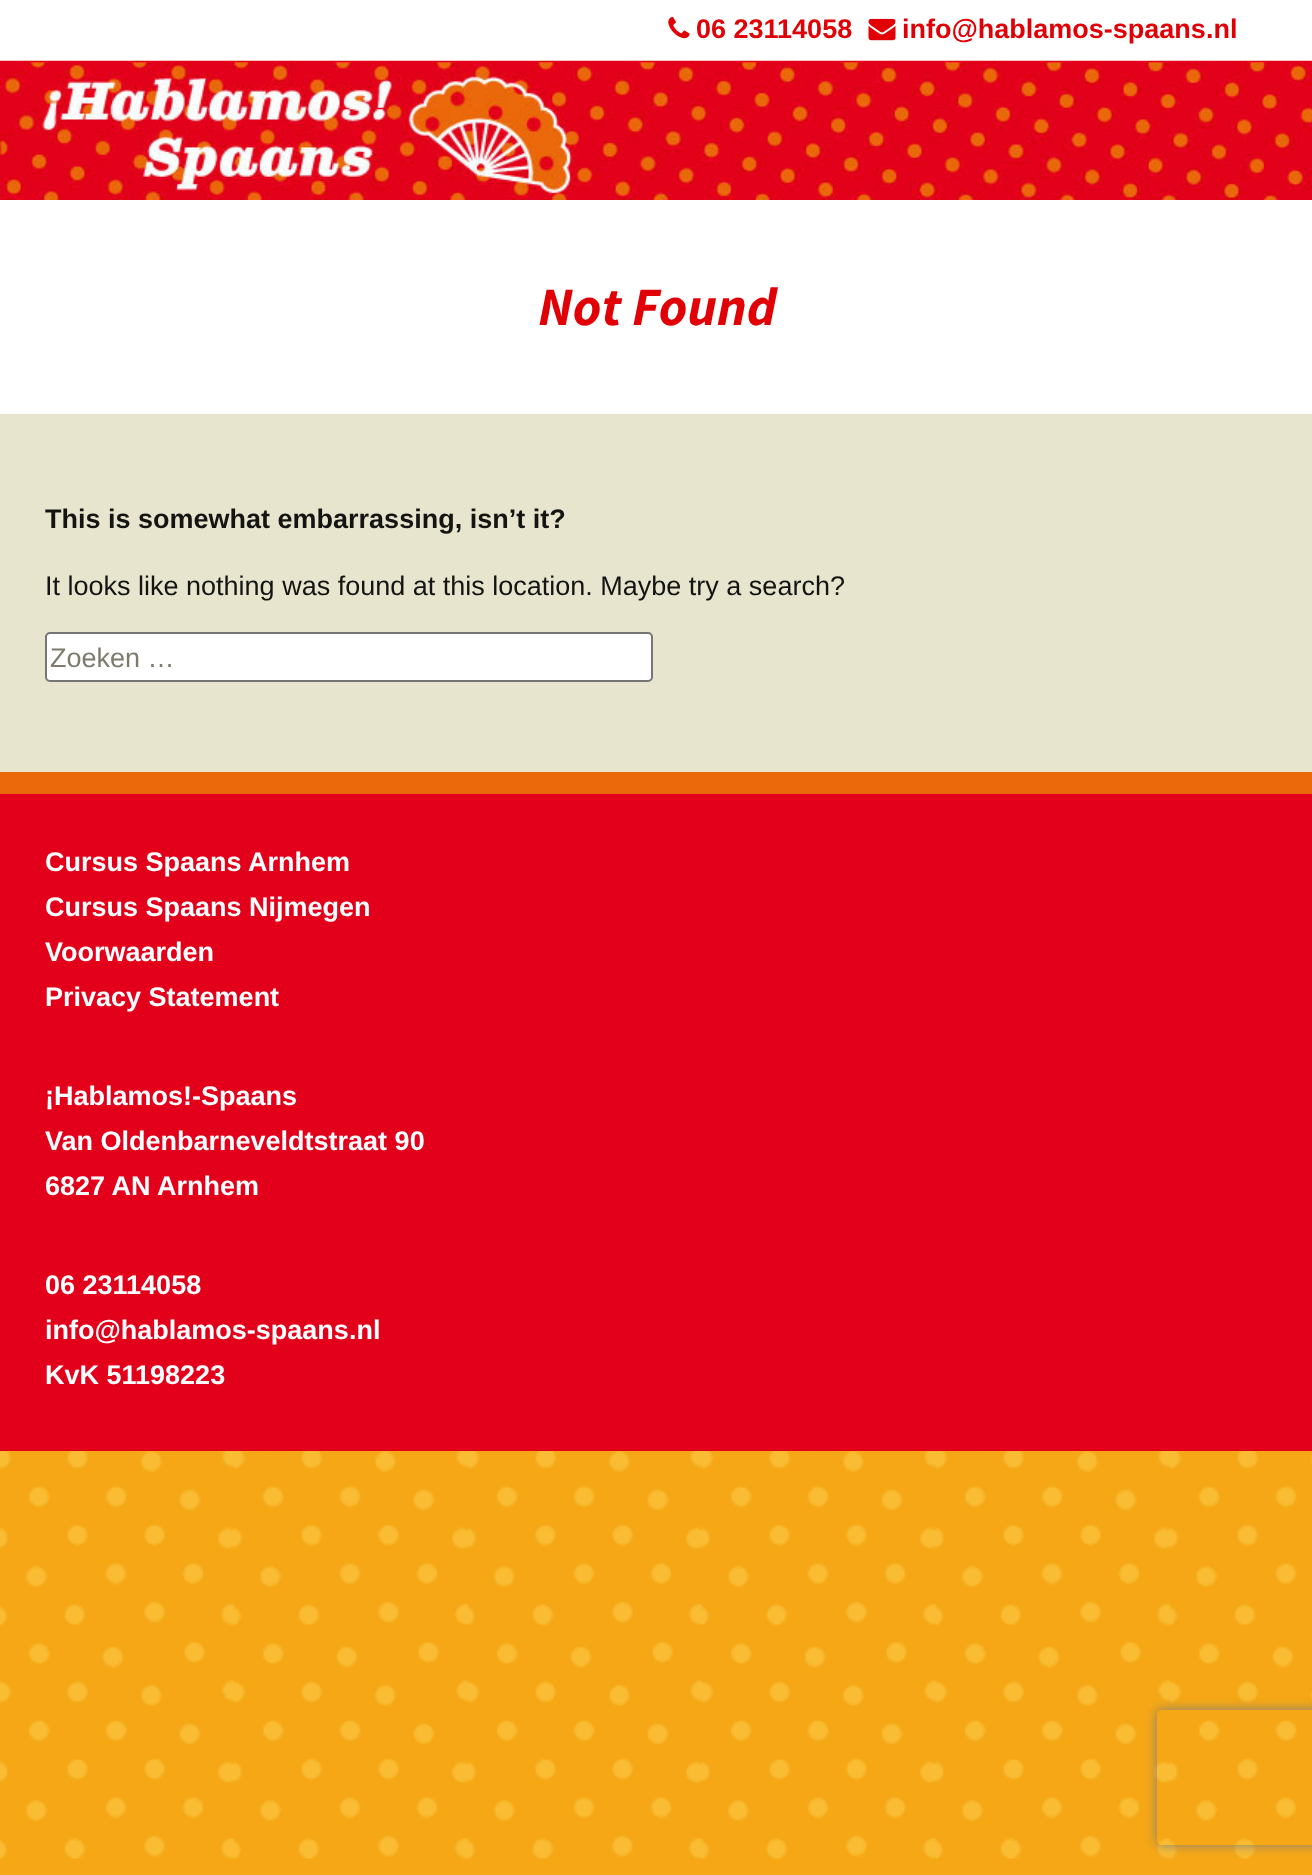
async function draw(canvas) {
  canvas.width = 1312
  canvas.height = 1875
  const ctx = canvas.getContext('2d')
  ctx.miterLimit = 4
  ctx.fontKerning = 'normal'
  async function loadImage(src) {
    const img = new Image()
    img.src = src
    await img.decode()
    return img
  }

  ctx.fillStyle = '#fff'
  ctx.fillRect(0, 0, 1312, 1875)
  ctx.drawImage(await loadImage('image0.png'), 0, 1451, 1312, 424)
  ctx.drawImage(await loadImage('image1.png'), 668, 17, 22, 22)
  ctx.font = 'bold 27px Liberation Sans'
  ctx.fillStyle = '#e10006'
  ctx.fillText('06 23114058', 696, 38)
  ctx.drawImage(await loadImage('image2.png'), 868, 18, 28, 23)
  ctx.fillText('info@hablamos-spaans.nl', 902, 38)
  ctx.drawImage(await loadImage('image3.png'), 0, 60, 1312, 140)
  ctx.font = 'italic bold 54px Source Sans Pro'
  ctx.fillText('Not Found', 538, 325)
  ctx.fillStyle = '#e8e5ce'
  ctx.fillRect(0, 414, 1312, 358)
  ctx.font = 'bold 27px Liberation Sans'
  ctx.fillStyle = '#141412'
  ctx.fillText('This is somewhat embarrassing, isn’t it?', 45, 528)
  ctx.font = '27px Liberation Sans'
  ctx.fillText('It looks like nothing was found at this location. Maybe try a search?', 45, 595)
  ctx.fillStyle = '#fff'
  ctx.beginPath()
  ctx.roundRect(46, 633, 606, 48, 4)
  ctx.fill()
  ctx.strokeStyle = '#767676'
  ctx.lineWidth = 2
  ctx.stroke()
  ctx.fillStyle = '#7d7b6d'
  ctx.fillText('Zoeken …', 50, 667)
  ctx.fillStyle = '#e3001a'
  ctx.fillRect(0, 794, 1312, 657)
  ctx.fillStyle = '#eb690a'
  ctx.fillRect(0, 772, 1312, 22)
  ctx.font = 'bold 27px Liberation Sans'
  ctx.fillStyle = '#fff'
  ctx.fillText('Cursus Spaans Arnhem', 45, 871)
  ctx.fillText('Cursus Spaans Nijmegen', 45, 916)
  ctx.fillText('Voorwaarden', 45, 961)
  ctx.fillText('Privacy Statement', 45, 1006)
  ctx.fillText('¡Hablamos!-Spaans', 45, 1105)
  ctx.fillText('Van Oldenbarneveldtstraat 90', 45, 1150)
  ctx.fillText('6827 AN Arnhem', 45, 1195)
  ctx.fillText('06 23114058', 45, 1294)
  ctx.fillText('info@hablamos-spaans.nl', 45, 1339)
  ctx.fillText('KvK 51198223', 45, 1384)
  ctx.save()
  ctx.beginPath()
  ctx.moveTo(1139, 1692)
  ctx.lineTo(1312, 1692)
  ctx.lineTo(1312, 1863)
  ctx.lineTo(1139, 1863)
  ctx.closePath()
  ctx.moveTo(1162, 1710)
  ctx.lineTo(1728, 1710)
  ctx.bezierCurveTo(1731, 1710, 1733, 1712, 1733, 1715)
  ctx.lineTo(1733, 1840)
  ctx.bezierCurveTo(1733, 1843, 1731, 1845, 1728, 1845)
  ctx.lineTo(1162, 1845)
  ctx.bezierCurveTo(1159, 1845, 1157, 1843, 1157, 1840)
  ctx.lineTo(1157, 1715)
  ctx.bezierCurveTo(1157, 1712, 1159, 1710, 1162, 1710)
  ctx.closePath()
  ctx.clip('evenodd')
  ctx.fillStyle = '#808080'
  ctx.filter = 'blur(5.5px)'
  ctx.beginPath()
  ctx.roundRect(1157, 1710, 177, 135, 5)
  ctx.fill()
  ctx.filter = 'none'
  ctx.restore()
}

draw(document.querySelector('canvas'))
